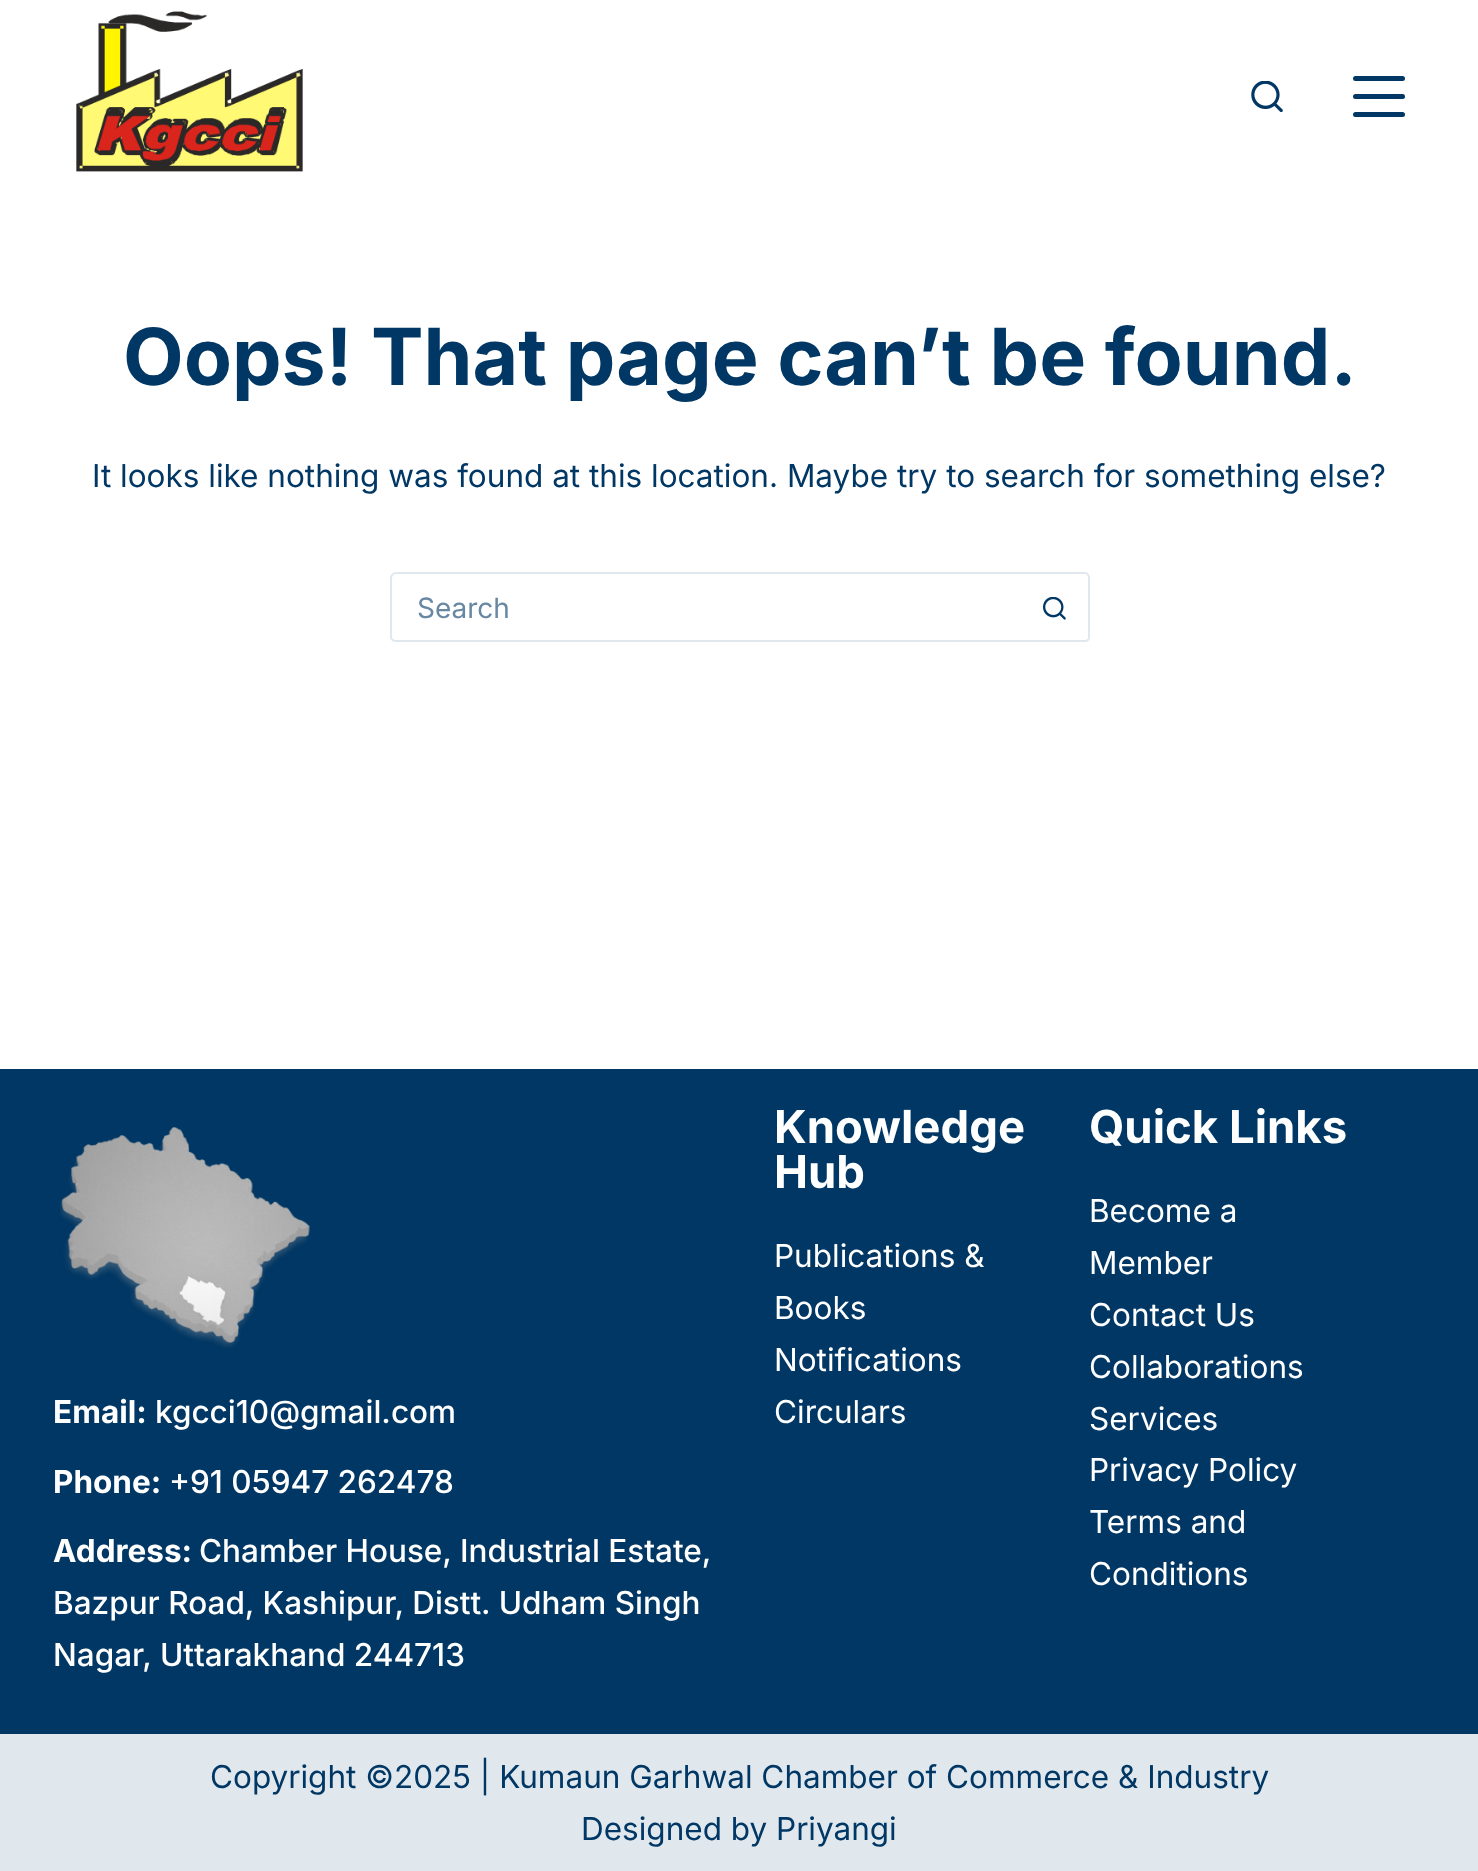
async function draw(canvas) {
  canvas.width = 1478
  canvas.height = 1871
  const ctx = canvas.getContext('2d')
  ctx.miterLimit = 4
  ctx.fontKerning = 'normal'
  async function loadImage(src) {
    const img = new Image()
    img.src = src
    await img.decode()
    return img
  }

  ctx.fillStyle = '#fff'
  ctx.fillRect(0, 0, 1478, 1871)
  ctx.drawImage(await loadImage('image0.png'), 76, 11, 227, 161)
  ctx.drawImage(await loadImage('image1.png'), 1251, 81, 32, 31)
  ctx.fillStyle = '#013764'
  ctx.beginPath()
  ctx.roundRect(1353, 76, 52, 5, 2.5)
  ctx.fill()
  ctx.beginPath()
  ctx.roundRect(1353, 94, 52, 5, 2.5)
  ctx.fill()
  ctx.beginPath()
  ctx.roundRect(1353, 112, 52, 5, 2.5)
  ctx.fill()
  ctx.font = 'bold 78.75px Inter'
  ctx.fillText('Oops! That page can’t be found.', 123, 385)
  ctx.font = '31.5px Inter'
  ctx.fillText('It looks like nothing was found at this location. Maybe try to search for something else?', 92, 487)
  ctx.fillStyle = '#e1e8ed'
  ctx.beginPath()
  ctx.moveTo(396, 572)
  ctx.lineTo(1020, 572)
  ctx.lineTo(1020, 642)
  ctx.lineTo(396, 642)
  ctx.bezierCurveTo(393, 642, 390, 640, 390, 637)
  ctx.lineTo(390, 578)
  ctx.bezierCurveTo(390, 575, 393, 572, 396, 572)
  ctx.closePath()
  ctx.moveTo(396, 574)
  ctx.lineTo(1020, 574)
  ctx.lineTo(1020, 640)
  ctx.lineTo(396, 640)
  ctx.bezierCurveTo(394, 640, 392, 639, 392, 637)
  ctx.lineTo(392, 578)
  ctx.bezierCurveTo(392, 576, 394, 574, 396, 574)
  ctx.closePath()
  ctx.fill('evenodd')
  ctx.font = '28px Inter'
  ctx.fillStyle = '#6787a2'
  ctx.fillText('Search', 417, 618)
  ctx.fillStyle = '#e1e8ed'
  ctx.beginPath()
  ctx.moveTo(1020, 572)
  ctx.lineTo(1085, 572)
  ctx.bezierCurveTo(1088, 572, 1090, 575, 1090, 578)
  ctx.lineTo(1090, 637)
  ctx.bezierCurveTo(1090, 640, 1088, 642, 1085, 642)
  ctx.lineTo(1020, 642)
  ctx.closePath()
  ctx.moveTo(1020, 574)
  ctx.lineTo(1085, 574)
  ctx.bezierCurveTo(1087, 574, 1088, 576, 1088, 578)
  ctx.lineTo(1088, 637)
  ctx.bezierCurveTo(1088, 639, 1087, 640, 1085, 640)
  ctx.lineTo(1020, 640)
  ctx.closePath()
  ctx.fill('evenodd')
  ctx.drawImage(await loadImage('image2.png'), 1043, 597, 23, 23)
  ctx.fillStyle = '#013764'
  ctx.fillRect(0, 1069, 1478, 665)
  ctx.font = 'bold 45.5px Inter'
  ctx.fillStyle = '#fff'
  ctx.fillText('Knowledge', 774, 1143)
  ctx.fillText('Hub', 774, 1188)
  ctx.font = '31.5px Inter'
  ctx.fillText('Publications &', 774, 1267)
  ctx.fillText('Books', 774, 1319)
  ctx.fillText('Notifications', 774, 1371)
  ctx.fillText('Circulars', 774, 1423)
  ctx.font = 'bold 45.5px Inter'
  ctx.fillText('Quick Links', 1089, 1143)
  ctx.font = '31.5px Inter'
  ctx.fillText('Become a', 1089, 1222)
  ctx.fillText('Member', 1089, 1274)
  ctx.fillText('Contact Us', 1089, 1326)
  ctx.fillText('Collaborations', 1089, 1378)
  ctx.fillText('Services', 1089, 1430)
  ctx.fillText('Privacy Policy', 1089, 1481)
  ctx.fillText('Terms and', 1089, 1533)
  ctx.fillText('Conditions', 1089, 1585)
  ctx.drawImage(await loadImage('image3.png'), 60, 1126, 250, 222)
  ctx.font = 'bold 31.5px Inter'
  ctx.fillText('Email:', 53, 1423)
  ctx.font = '500 31.5px Inter'
  ctx.fillText('kgcci10@gmail.com', 155, 1423)
  ctx.font = 'bold 31.5px Inter'
  ctx.fillText('Phone:', 53, 1493)
  ctx.font = '500 31.5px Inter'
  ctx.fillText('+91 05947 262478', 169, 1493)
  ctx.font = 'bold 31.5px Inter'
  ctx.fillText('Address:', 53, 1562)
  ctx.font = '500 31.5px Inter'
  ctx.fillText('Chamber House, Industrial Estate,', 199, 1562)
  ctx.fillText('Bazpur Road, Kashipur, Distt. Udham Singh', 53, 1614)
  ctx.fillText('Nagar, Uttarakhand 244713', 53, 1666)
  ctx.fillStyle = '#e1e8ed'
  ctx.fillRect(0, 1734, 1478, 137)
  ctx.font = '31.5px Inter'
  ctx.fillStyle = '#013764'
  ctx.fillText('Copyright ©2025 | Kumaun Garhwal Chamber of Commerce & Industry', 210, 1788)
  ctx.fillText('Designed by Priyangi', 581, 1840)
}

draw(document.querySelector('canvas'))
